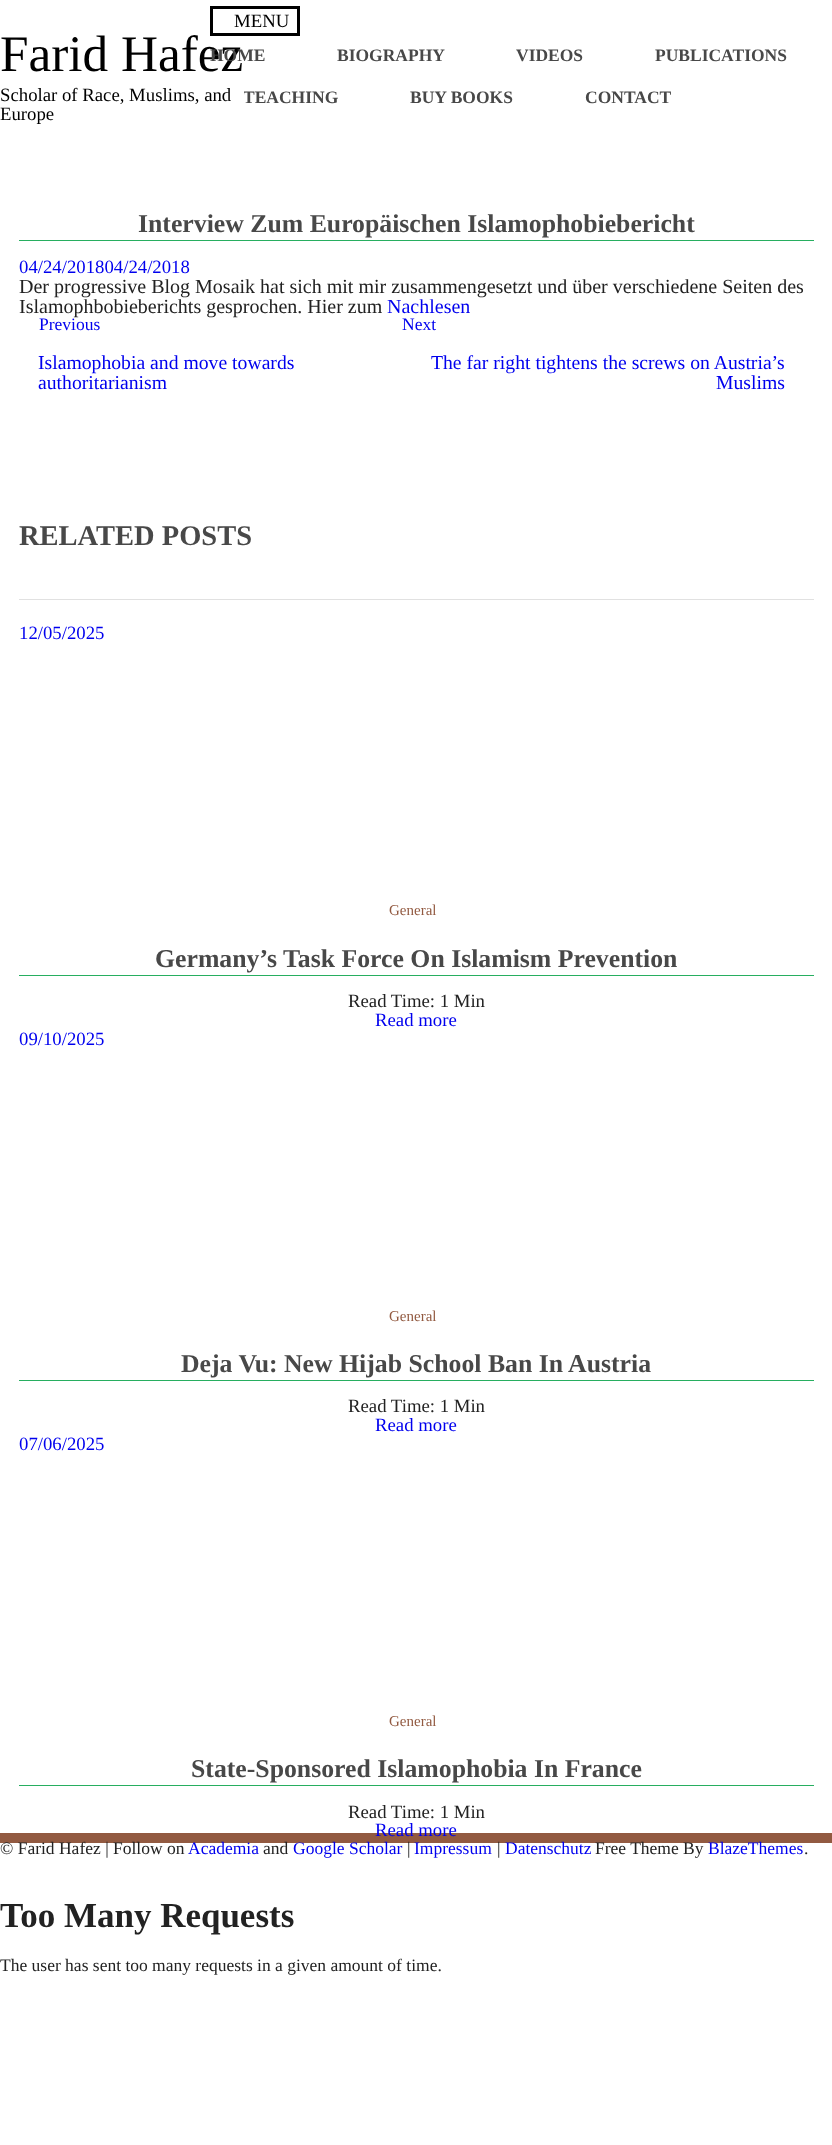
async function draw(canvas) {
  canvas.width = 832
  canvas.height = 2145
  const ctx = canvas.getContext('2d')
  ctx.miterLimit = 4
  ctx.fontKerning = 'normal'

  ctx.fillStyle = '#fff'
  ctx.fillRect(0, 0, 832, 2145)
  ctx.font = '51.25px Liberation Serif'
  ctx.fillStyle = '#000'
  ctx.fillText('Farid Hafez', 0, 71)
  ctx.font = '18.75px Liberation Serif'
  ctx.fillText('Scholar of Race, Muslims, and', 0, 101)
  ctx.fillText('Europe', 0, 120)
  ctx.strokeStyle = '#000'
  ctx.lineWidth = 3
  ctx.strokeRect(211.5, 7.5, 87, 27)
  ctx.fillText('MENU', 234, 27)
  ctx.font = 'bold 17.5px Liberation Serif'
  ctx.fillStyle = '#484848'
  ctx.fillText('HOME', 210, 61)
  ctx.fillText('BIOGRAPHY', 337, 61)
  ctx.fillText('VIDEOS', 516, 61)
  ctx.fillText('PUBLICATIONS', 655, 61)
  ctx.save()
  ctx.beginPath()
  ctx.rect(244, 79, 95, 39)
  ctx.clip()
  ctx.fillText('TEACHING', 243, 103)
  ctx.restore()
  ctx.fillText('BUY BOOKS', 410, 103)
  ctx.fillText('CONTACT', 585, 103)
  ctx.fillStyle = '#27ae60'
  ctx.fillRect(19, 240, 795, 1)
  ctx.font = 'bold 25.75px Liberation Serif'
  ctx.fillStyle = '#484848'
  ctx.fillText('Interview Zum Europäischen Islamophobiebericht', 138, 232)
  ctx.font = '18.75px Liberation Serif'
  ctx.fillStyle = '#00e'
  ctx.fillText('04/24/201804/24/2018', 19, 273)
  ctx.font = '20px Liberation Serif'
  ctx.fillStyle = '#222'
  ctx.fillText('Der progressive Blog Mosaik hat sich mit mir zusammengesetzt und über verschiedene Seiten des', 19, 293)
  ctx.fillText('Islamophbobieberichts gesprochen. Hier zum', 19, 313)
  ctx.fillStyle = '#00e'
  ctx.fillText('Nachlesen', 387, 313)
  ctx.font = '17.5px Liberation Serif'
  ctx.fillText('Previous', 39, 330)
  ctx.font = '19.7px Liberation Serif'
  ctx.fillText('Islamophobia and move towards', 38, 369)
  ctx.fillText('authoritarianism', 38, 389)
  ctx.font = '17.5px Liberation Serif'
  ctx.fillText('Next', 402, 330)
  ctx.font = '19.7px Liberation Serif'
  ctx.fillText('The far right tightens the screws on Austria’s', 431, 369)
  ctx.fillText('Muslims', 716, 389)
  ctx.font = 'bold 28.5px Liberation Serif'
  ctx.fillStyle = '#484848'
  ctx.fillText('RELATED POSTS', 19, 545)
  ctx.fillStyle = '#e1e1e1'
  ctx.fillRect(19, 599, 795, 1)
  ctx.font = '18.75px Liberation Serif'
  ctx.fillStyle = '#00e'
  ctx.fillText('12/05/2025', 19, 639)
  ctx.font = '15px Liberation Serif'
  ctx.fillStyle = '#925a41'
  ctx.fillText('General', 389, 915)
  ctx.fillRect(0, 1833, 832, 10)
  ctx.fillStyle = '#27ae60'
  ctx.fillRect(19, 975, 795, 1)
  ctx.font = 'bold 25.75px Liberation Serif'
  ctx.fillStyle = '#484848'
  ctx.fillText('Germany’s Task Force On Islamism Prevention', 155, 967)
  ctx.font = '18.75px Liberation Serif'
  ctx.fillStyle = '#222'
  ctx.fillText('Read Time: 1 Min', 348, 1007)
  ctx.fillStyle = '#00e'
  ctx.fillText('Read more', 375, 1026)
  ctx.fillText('09/10/2025', 19, 1045)
  ctx.font = '15px Liberation Serif'
  ctx.fillStyle = '#925a41'
  ctx.fillText('General', 389, 1321)
  ctx.fillStyle = '#27ae60'
  ctx.fillRect(19, 1380, 795, 1)
  ctx.font = 'bold 25.75px Liberation Serif'
  ctx.fillStyle = '#484848'
  ctx.fillText('Deja Vu: New Hijab School Ban In Austria', 181, 1372)
  ctx.font = '18.75px Liberation Serif'
  ctx.fillStyle = '#222'
  ctx.fillText('Read Time: 1 Min', 348, 1412)
  ctx.fillStyle = '#00e'
  ctx.fillText('Read more', 375, 1431)
  ctx.fillText('07/06/2025', 19, 1450)
  ctx.font = '15px Liberation Serif'
  ctx.fillStyle = '#925a41'
  ctx.fillText('General', 389, 1726)
  ctx.fillStyle = '#27ae60'
  ctx.fillRect(19, 1785, 795, 1)
  ctx.font = 'bold 25.75px Liberation Serif'
  ctx.fillStyle = '#484848'
  ctx.fillText('State-Sponsored Islamophobia In France', 191, 1777)
  ctx.font = '18.75px Liberation Serif'
  ctx.fillStyle = '#222'
  ctx.fillText('Read Time: 1 Min', 348, 1818)
  ctx.fillStyle = '#00e'
  ctx.fillText('Read more', 375, 1836)
  ctx.font = '17.5px Liberation Serif'
  ctx.fillStyle = '#222'
  ctx.fillText('© Farid Hafez | Follow on', 0, 1854)
  ctx.fillStyle = '#00e'
  ctx.fillText('Academia', 188, 1854)
  ctx.fillStyle = '#222'
  ctx.fillText('and', 263, 1854)
  ctx.fillStyle = '#00e'
  ctx.fillText('Google Scholar', 293, 1854)
  ctx.fillStyle = '#222'
  ctx.fillText('|', 407, 1854)
  ctx.fillStyle = '#00e'
  ctx.fillText('Impressum', 414, 1854)
  ctx.fillStyle = '#222'
  ctx.fillText('|', 497, 1854)
  ctx.fillStyle = '#00e'
  ctx.fillText('Datenschutz', 505, 1854)
  ctx.fillStyle = '#222'
  ctx.fillText('Free Theme By', 595, 1854)
  ctx.fillStyle = '#00e'
  ctx.fillText('BlazeThemes', 708, 1854)
  ctx.fillStyle = '#222'
  ctx.fillText('.', 804, 1854)
  ctx.font = 'bold 35px Liberation Serif'
  ctx.fillText('Too Many Requests', 0, 1927)
  ctx.font = '17.5px Liberation Serif'
  ctx.fillText('The user has sent too many requests in a given amount of time.', 0, 1971)
}

draw(document.querySelector('canvas'))
